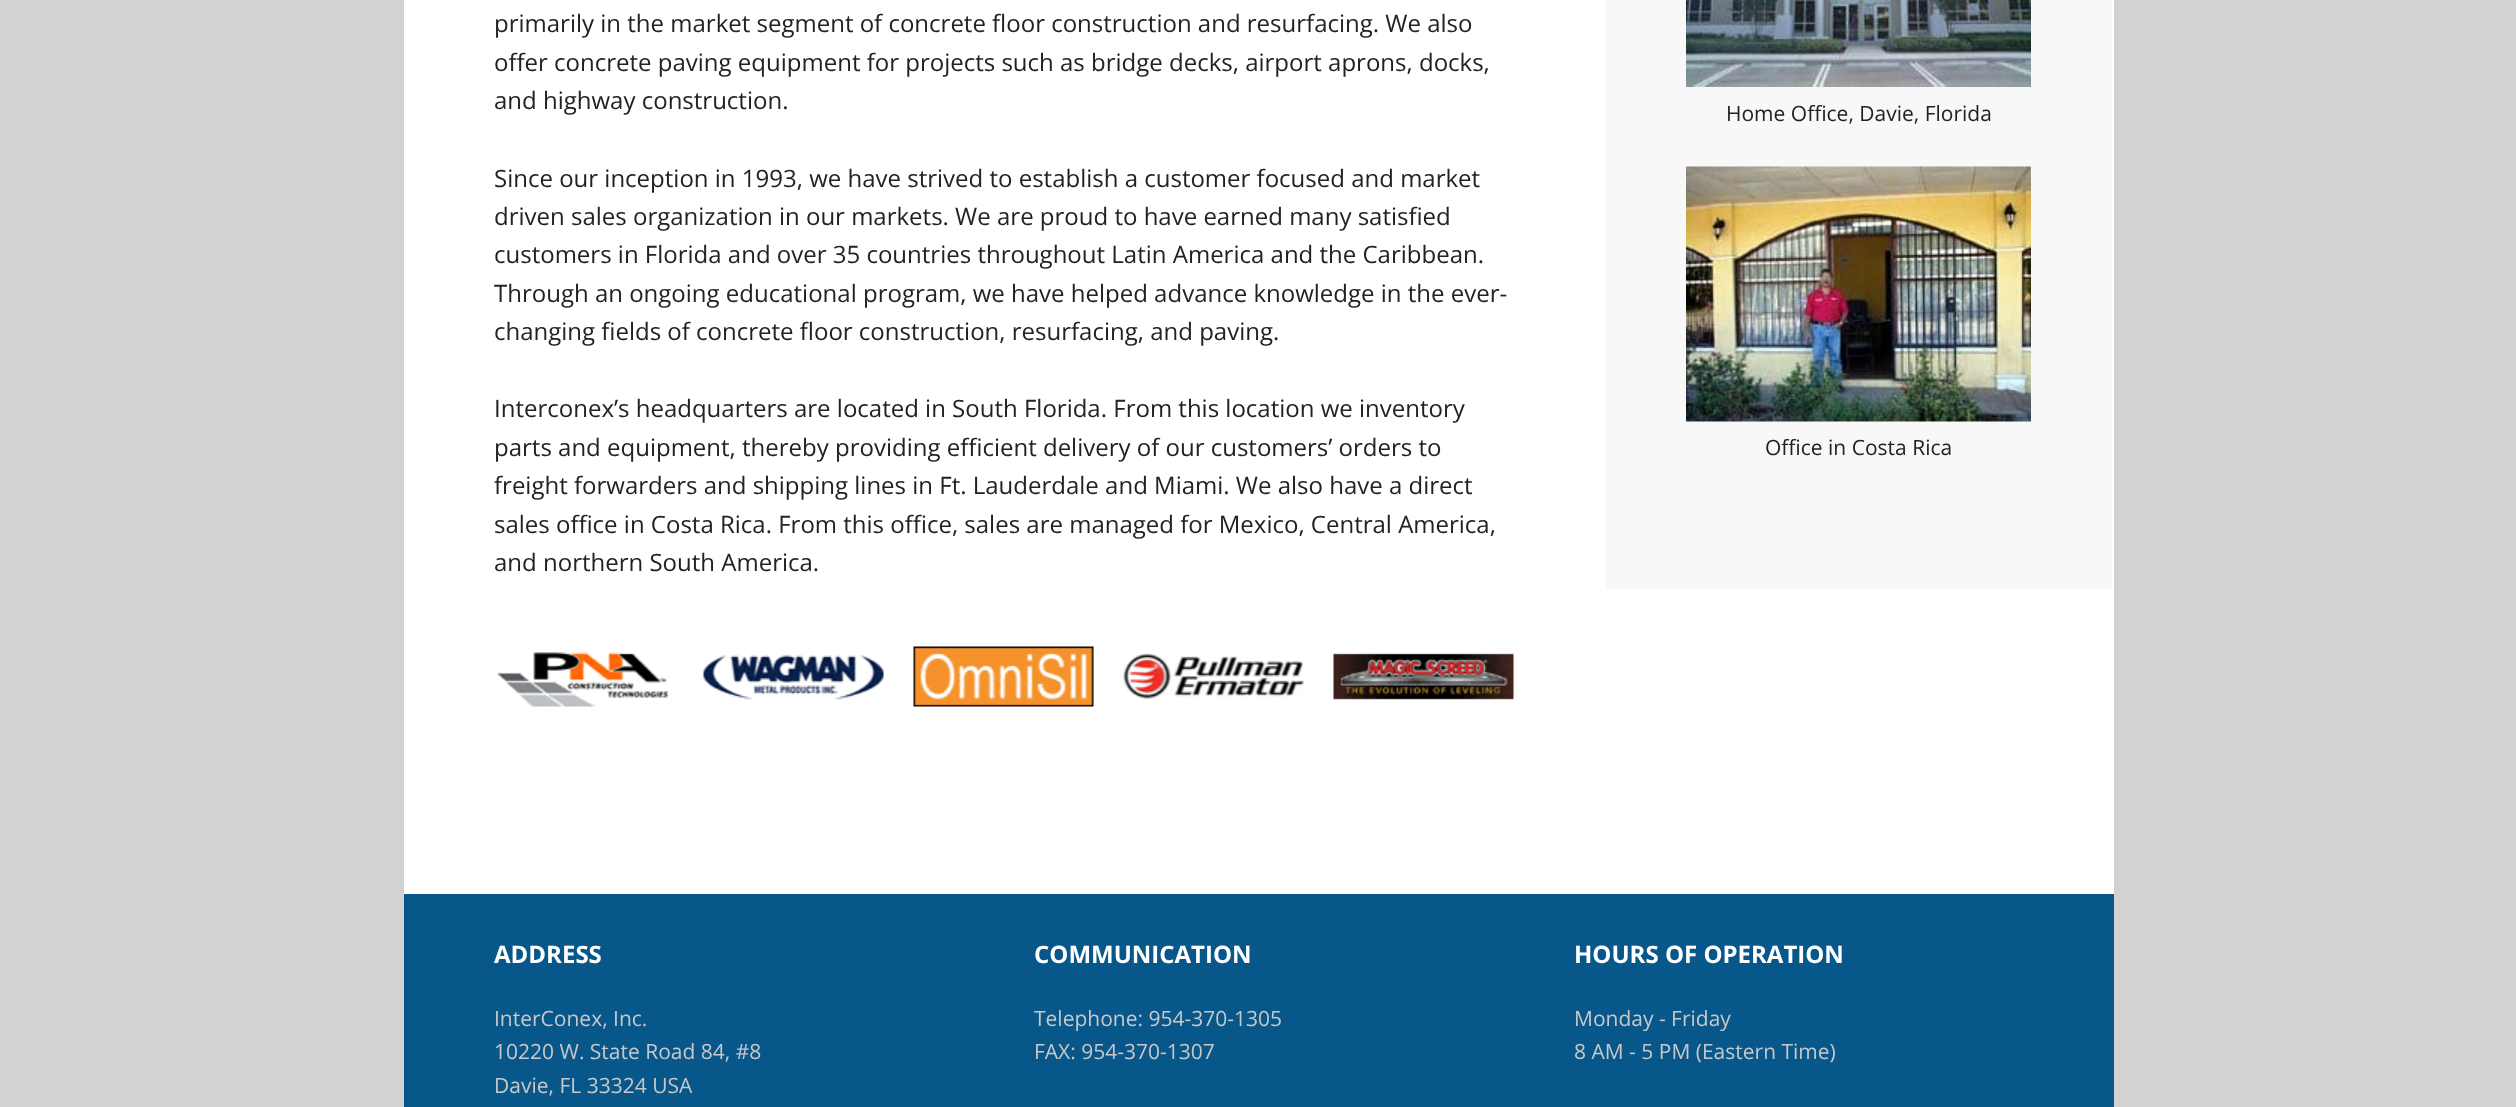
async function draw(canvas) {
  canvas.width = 2516
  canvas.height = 1107
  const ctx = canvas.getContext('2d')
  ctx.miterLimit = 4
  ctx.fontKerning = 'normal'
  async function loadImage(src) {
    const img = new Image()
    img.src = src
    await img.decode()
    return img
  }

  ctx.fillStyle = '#d2d2d2'
  ctx.fillRect(0, 0, 2516, 1107)
  ctx.fillStyle = '#fff'
  ctx.fillRect(404, 0, 1710, 894)
  ctx.font = '24px Open Sans'
  ctx.fillStyle = '#222'
  ctx.fillText('primarily in the market segment of concrete floor construction and resurfacing. We also', 494, 32)
  ctx.fillText('offer concrete paving equipment for projects such as bridge decks, airport aprons, docks,', 494, 71)
  ctx.fillText('and highway construction.', 494, 109)
  ctx.fillText('Since our inception in 1993, we have strived to establish a customer focused and market', 494, 187)
  ctx.fillText('driven sales organization in our markets. We are proud to have earned many satisfied', 494, 225)
  ctx.fillText('customers in Florida and over 35 countries throughout Latin America and the Caribbean.', 494, 263)
  ctx.fillText('Through an ongoing educational program, we have helped advance knowledge in the ever-', 494, 302)
  ctx.fillText('changing fields of concrete floor construction, resurfacing, and paving.', 494, 340)
  ctx.fillText('Interconex’s headquarters are located in South Florida. From this location we inventory', 494, 417)
  ctx.fillText('parts and equipment, thereby providing efficient delivery of our customers’ orders to', 494, 456)
  ctx.fillText('freight forwarders and shipping lines in Ft. Lauderdale and Miami. We also have a direct', 494, 494)
  ctx.fillText('sales office in Costa Rica. From this office, sales are managed for Mexico, Central America,', 494, 533)
  ctx.fillText('and northern South America.', 494, 571)
  ctx.drawImage(await loadImage('image0.png'), 497, 652, 172, 55)
  ctx.drawImage(await loadImage('image1.png'), 703, 655, 181, 45)
  ctx.drawImage(await loadImage('image2.png'), 913, 646, 181, 61)
  ctx.drawImage(await loadImage('image3.png'), 1123, 653, 181, 47)
  ctx.drawImage(await loadImage('image4.png'), 1333, 653, 181, 47)
  ctx.fillStyle = '#f8f8f8'
  ctx.fillRect(1606, 0, 506, 589)
  ctx.drawImage(await loadImage('image5.png'), 1686, 0, 345, 87)
  ctx.font = '21px Open Sans'
  ctx.fillStyle = '#222'
  ctx.fillText('Home Office, Davie, Florida', 1726, 121)
  ctx.drawImage(await loadImage('image6.png'), 1686, 166, 345, 256)
  ctx.fillText('Office in Costa Rica', 1765, 455)
  ctx.fillStyle = '#07578b'
  ctx.fillRect(404, 894, 1710, 213)
  ctx.font = 'bold 24px Open Sans'
  ctx.fillStyle = '#fff'
  ctx.fillText('ADDRESS', 494, 963)
  ctx.font = '21px Open Sans'
  ctx.fillStyle = '#c8c8c8'
  ctx.fillText('InterConex, Inc.', 494, 1026)
  ctx.fillText('10220 W. State Road 84, #8', 494, 1059)
  ctx.fillText('Davie, FL 33324 USA', 494, 1093)
  ctx.font = 'bold 24px Open Sans'
  ctx.fillStyle = '#fff'
  ctx.fillText('COMMUNICATION', 1034, 963)
  ctx.font = '21px Open Sans'
  ctx.fillStyle = '#c8c8c8'
  ctx.fillText('Telephone: 954-370-1305', 1034, 1026)
  ctx.fillText('FAX: 954-370-1307', 1034, 1059)
  ctx.font = 'bold 24px Open Sans'
  ctx.fillStyle = '#fff'
  ctx.fillText('HOURS OF OPERATION', 1574, 963)
  ctx.font = '21px Open Sans'
  ctx.fillStyle = '#c8c8c8'
  ctx.fillText('Monday - Friday', 1574, 1026)
  ctx.fillText('8 AM - 5 PM (Eastern Time)', 1574, 1059)
}

draw(document.querySelector('canvas'))
